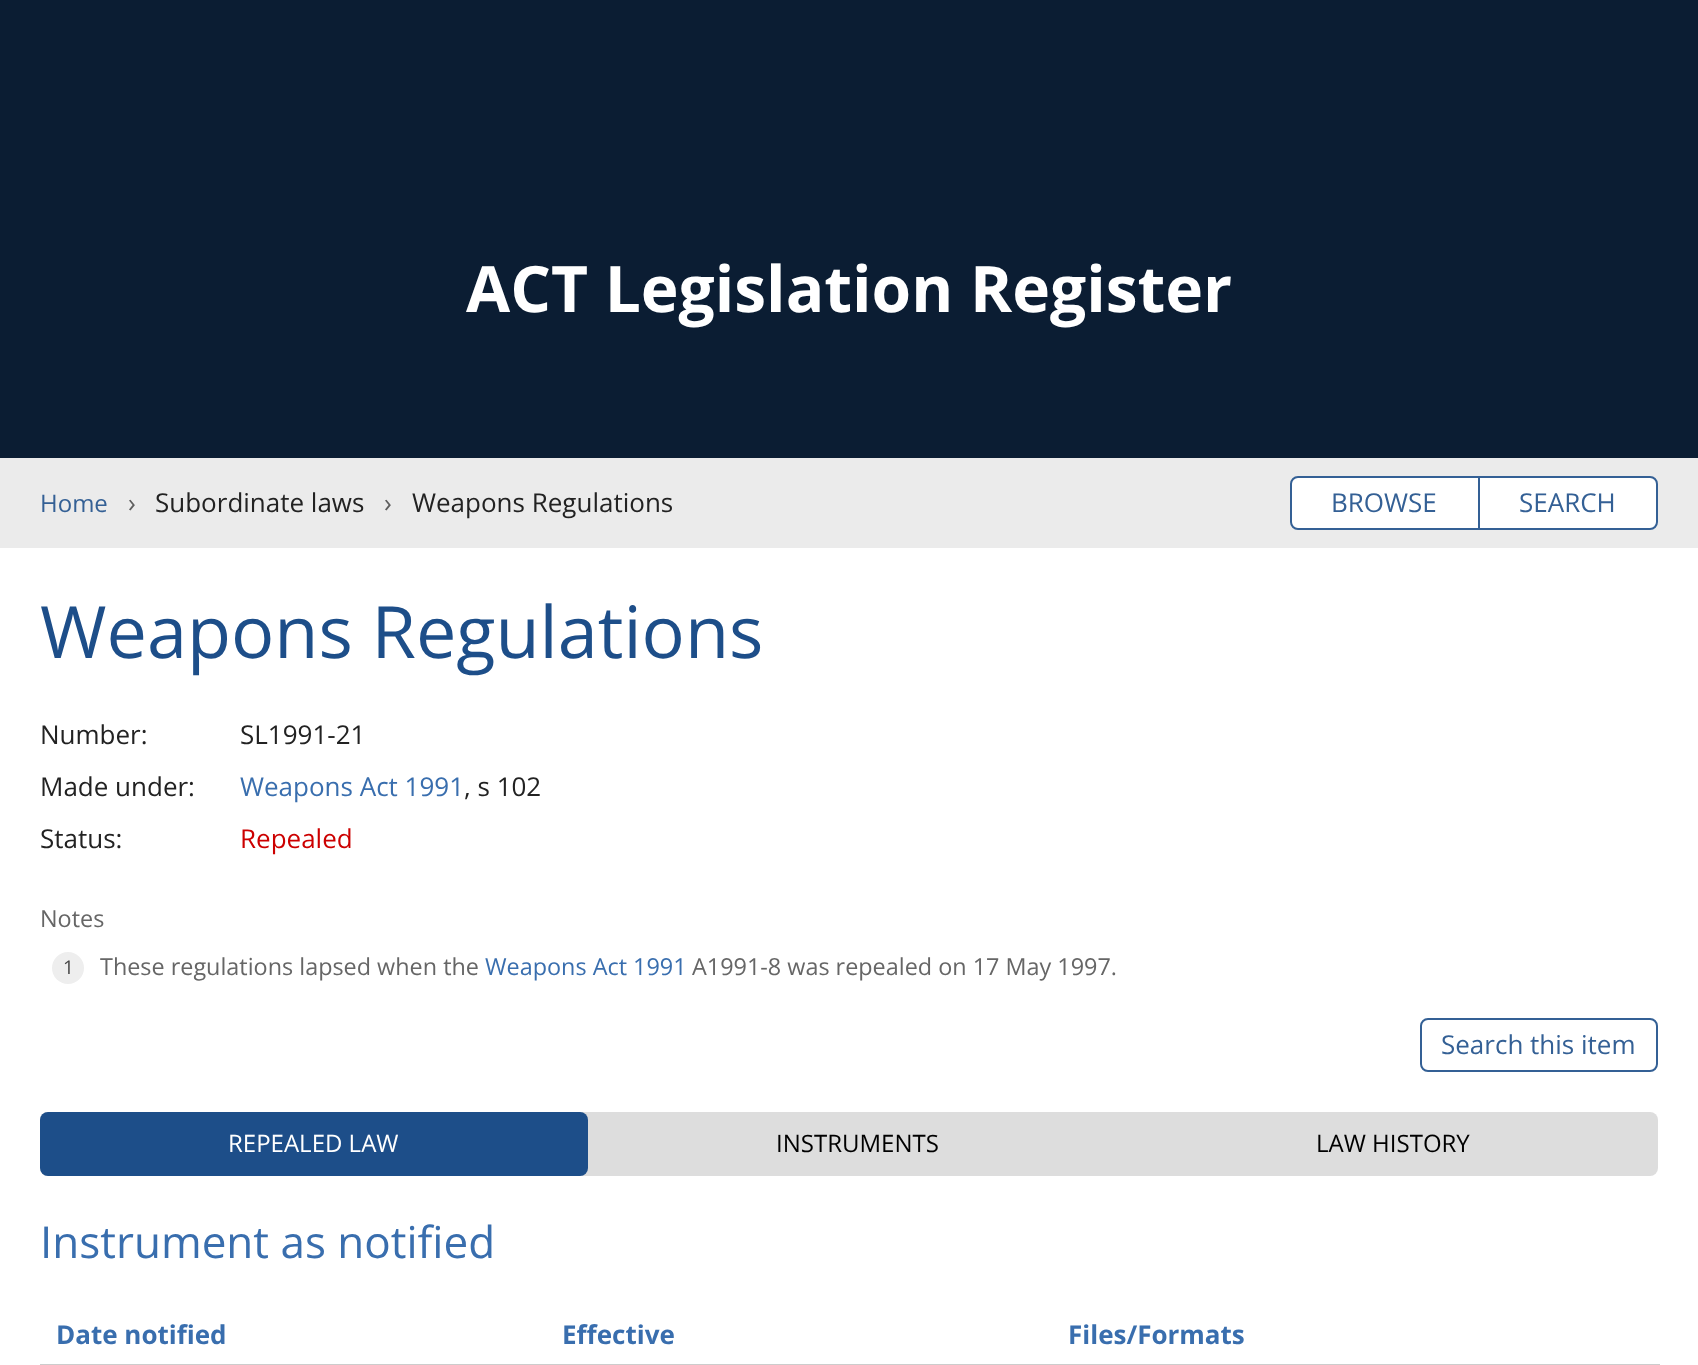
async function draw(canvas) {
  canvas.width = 1698
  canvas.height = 1365
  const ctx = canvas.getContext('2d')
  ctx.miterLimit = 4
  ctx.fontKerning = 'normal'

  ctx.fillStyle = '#fff'
  ctx.fillRect(0, 0, 1698, 1365)
  ctx.fillStyle = '#0b1d33'
  ctx.fillRect(0, 0, 1698, 458)
  ctx.font = 'bold 64px Open Sans'
  ctx.fillStyle = '#fff'
  ctx.fillText('ACT Legislation Register', 466, 312)
  ctx.fillStyle = '#ebebeb'
  ctx.fillRect(0, 458, 1698, 90)
  ctx.font = '24px Open Sans'
  ctx.fillStyle = '#346095'
  ctx.fillText('Home', 40, 512)
  ctx.font = '26px Open Sans'
  ctx.fillStyle = '#5e5e5e'
  ctx.fillText('›', 128, 512)
  ctx.fillStyle = '#222'
  ctx.fillText('Subordinate laws', 155, 512)
  ctx.fillStyle = '#5e5e5e'
  ctx.fillText('›', 384, 512)
  ctx.fillStyle = '#222'
  ctx.fillText('Weapons Regulations', 412, 512)
  ctx.fillStyle = '#fff'
  ctx.beginPath()
  ctx.roundRect(1291, 477, 366, 52, 7)
  ctx.fill()
  ctx.strokeStyle = '#346095'
  ctx.lineWidth = 2
  ctx.stroke()
  ctx.fillStyle = '#346095'
  ctx.fillText('BROWSE', 1331, 512)
  ctx.fillRect(1478, 478, 2, 50)
  ctx.fillText('SEARCH', 1519, 512)
  ctx.font = '72px Open Sans'
  ctx.fillStyle = '#1d4e89'
  ctx.fillText('Weapons Regulations', 40, 658)
  ctx.font = '26px Open Sans'
  ctx.fillStyle = '#222'
  ctx.fillText('Number:', 40, 744)
  ctx.fillText('SL1991-21', 240, 744)
  ctx.fillText('Made under:', 40, 796)
  ctx.fillStyle = '#396eae'
  ctx.fillText('Weapons Act 1991', 240, 796)
  ctx.fillStyle = '#222'
  ctx.fillText(', s 102', 464, 796)
  ctx.fillText('Status:', 40, 848)
  ctx.fillStyle = '#c00'
  ctx.fillText('Repealed', 240, 848)
  ctx.font = '23.4px Open Sans'
  ctx.fillStyle = '#666'
  ctx.fillText('Notes', 40, 927)
  ctx.fillStyle = '#eee'
  ctx.beginPath()
  ctx.arc(68, 968, 16, 0, 2 * Math.PI)
  ctx.fill()
  ctx.font = '19px Open Sans'
  ctx.fillStyle = '#444'
  ctx.fillText('1', 63, 974)
  ctx.font = '23.4px Open Sans'
  ctx.fillStyle = '#666'
  ctx.fillText('These regulations lapsed when the', 100, 975)
  ctx.fillStyle = '#396eae'
  ctx.fillText('Weapons Act 1991', 485, 975)
  ctx.fillStyle = '#666'
  ctx.fillText('A1991-8 was repealed on 17 May 1997.', 692, 975)
  ctx.beginPath()
  ctx.roundRect(1421, 1019, 236, 52, 7)
  ctx.stroke()
  ctx.font = '26px Open Sans'
  ctx.fillStyle = '#346095'
  ctx.fillText('Search this item', 1441, 1054)
  ctx.fillStyle = '#ddd'
  ctx.beginPath()
  ctx.roundRect(40, 1112, 1618, 64, 8)
  ctx.fill()
  ctx.fillStyle = '#1d4e89'
  ctx.beginPath()
  ctx.roundRect(40, 1112, 548, 64, 8)
  ctx.fill()
  ctx.font = '24px Open Sans'
  ctx.fillStyle = '#fff'
  ctx.fillText('REPEALED LAW', 228, 1152)
  ctx.fillStyle = '#000'
  ctx.fillText('INSTRUMENTS', 776, 1152)
  ctx.fillText('LAW HISTORY', 1316, 1152)
  ctx.font = '44px Open Sans'
  ctx.fillStyle = '#396eae'
  ctx.fillText('Instrument as notified', 40, 1258)
  ctx.font = 'bold 26px Open Sans'
  ctx.fillText('Date notified', 56, 1344)
  ctx.fillText('Effective', 562, 1344)
  ctx.fillStyle = '#ccc'
  ctx.fillRect(40, 1364, 1620, 1)
  ctx.fillStyle = '#396eae'
  ctx.fillText('Files/Formats', 1068, 1344)
}

draw(document.querySelector('canvas'))
